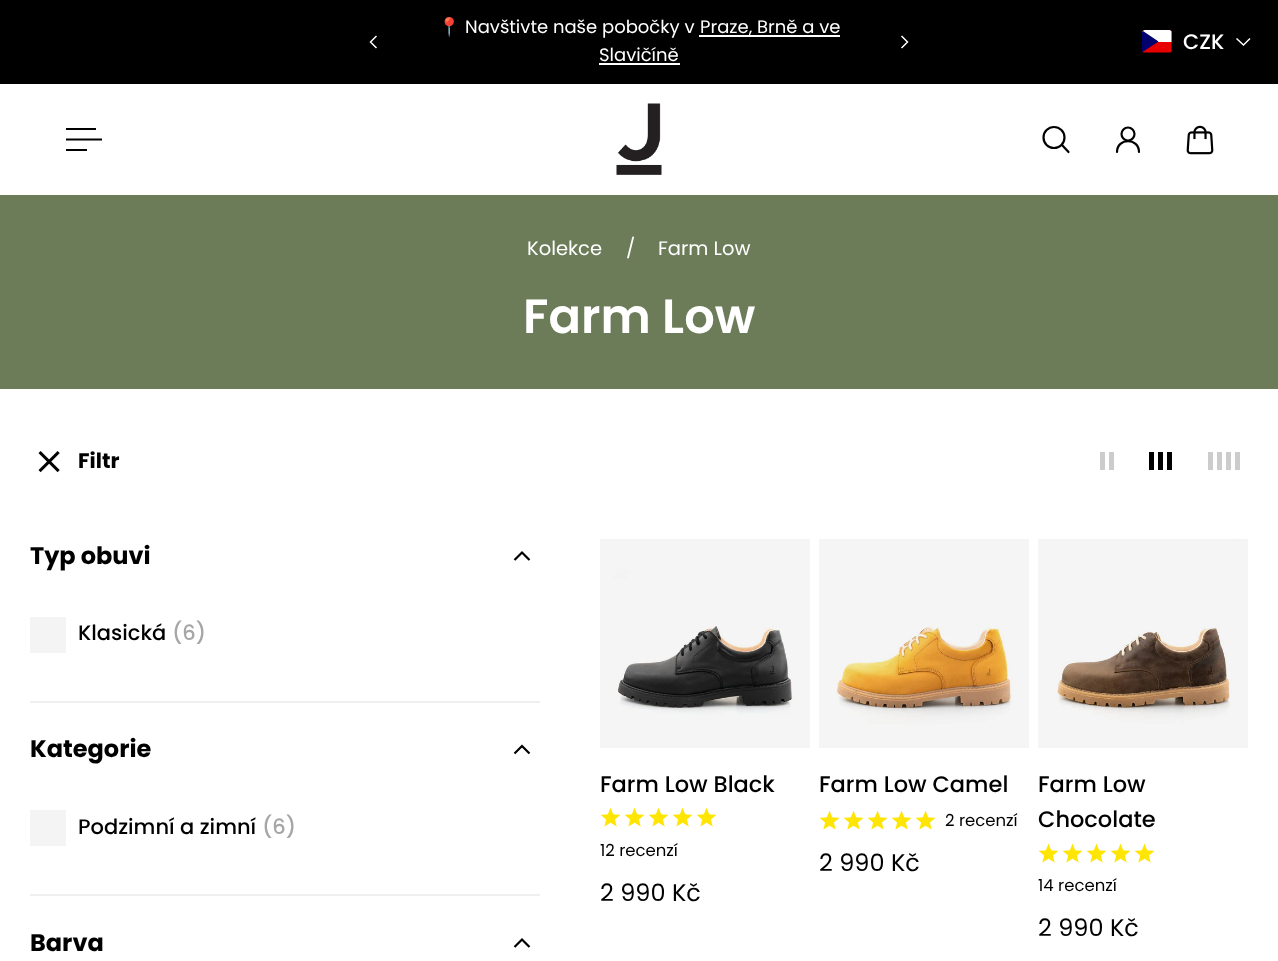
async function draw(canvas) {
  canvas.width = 1278
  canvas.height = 961
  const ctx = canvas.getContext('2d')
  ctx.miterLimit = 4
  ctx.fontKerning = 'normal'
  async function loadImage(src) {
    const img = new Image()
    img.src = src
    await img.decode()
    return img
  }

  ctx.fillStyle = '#fff'
  ctx.fillRect(0, 0, 1278, 961)
  ctx.fillStyle = '#000'
  ctx.fillRect(0, 0, 1278, 84)
  ctx.beginPath()
  ctx.moveTo(376.5, 36)
  ctx.lineTo(370.5, 42)
  ctx.lineTo(376.5, 48)
  ctx.strokeStyle = '#fff'
  ctx.lineWidth = 1.5
  ctx.stroke()
  ctx.font = '18px Noto Color Emoji'
  ctx.fillStyle = '#fff'
  ctx.fillText('📍', 438, 33)
  ctx.font = '18px Poppins'
  ctx.fillText('Navštivte naše pobočky v', 465, 33)
  ctx.fillRect(699, 35, 141, 2)
  ctx.fillText('Praze, Brně a ve', 700, 33)
  ctx.fillText('Slavičíně', 599, 61)
  ctx.fillRect(599, 63, 81, 2)
  ctx.beginPath()
  ctx.moveTo(901.5, 36)
  ctx.lineTo(907.5, 42)
  ctx.lineTo(901.5, 48)
  ctx.stroke()
  ctx.fillStyle = '#e80000'
  ctx.beginPath()
  ctx.moveTo(1145, 30)
  ctx.lineTo(1169, 30)
  ctx.bezierCurveTo(1170, 30, 1171, 30.5, 1171.5, 31.5)
  ctx.lineTo(1171.5, 51.5)
  ctx.lineTo(1170.5, 52.5)
  ctx.lineTo(1143.5, 52.5)
  ctx.bezierCurveTo(1142.5, 52, 1142, 51, 1142, 50)
  ctx.lineTo(1142, 33)
  ctx.bezierCurveTo(1142, 31.5, 1143.5, 30, 1145, 30)
  ctx.closePath()
  ctx.fill()
  ctx.fillStyle = '#fff'
  ctx.beginPath()
  ctx.moveTo(1145, 30)
  ctx.lineTo(1169, 30)
  ctx.bezierCurveTo(1170, 30, 1171, 30.5, 1171.5, 31.5)
  ctx.lineTo(1171.5, 42)
  ctx.lineTo(1142, 42)
  ctx.lineTo(1142, 33)
  ctx.bezierCurveTo(1142, 31.5, 1143.5, 30, 1145, 30)
  ctx.closePath()
  ctx.fill()
  ctx.fillStyle = '#00006f'
  ctx.beginPath()
  ctx.moveTo(1143, 31)
  ctx.bezierCurveTo(1142.5, 31.5, 1142, 32, 1142, 33)
  ctx.lineTo(1142, 50)
  ctx.bezierCurveTo(1142, 50.5, 1142, 51.5, 1142.5, 52)
  ctx.lineTo(1158.5, 41.5)
  ctx.closePath()
  ctx.fill()
  ctx.font = '500 21px Poppins'
  ctx.fillStyle = '#fff'
  ctx.fillText('CZK', 1183, 49)
  ctx.beginPath()
  ctx.moveTo(1250, 38.5)
  ctx.lineTo(1243.5, 45)
  ctx.lineTo(1236.5, 38.5)
  ctx.stroke()
  ctx.fillStyle = '#000'
  ctx.fillRect(66, 128, 30, 2)
  ctx.beginPath()
  ctx.moveTo(66, 139.5)
  ctx.lineTo(102, 139.5)
  ctx.strokeStyle = '#000'
  ctx.lineWidth = 2.2
  ctx.stroke()
  ctx.fillRect(66, 149, 21, 2)
  ctx.drawImage(await loadImage('image0.png'), 616, 103, 46, 72)
  ctx.beginPath()
  ctx.arc(1054, 137.5, 10.5, 0, 2 * Math.PI)
  ctx.stroke()
  ctx.beginPath()
  ctx.moveTo(1062, 145)
  ctx.lineTo(1068.5, 152)
  ctx.lineCap = 'round'
  ctx.lineJoin = 'round'
  ctx.stroke()
  ctx.beginPath()
  ctx.arc(1128, 134, 6.5, 0, 2 * Math.PI)
  ctx.stroke()
  ctx.beginPath()
  ctx.moveTo(1139, 152)
  ctx.bezierCurveTo(1139, 137.5, 1117, 137.5, 1117, 152)
  ctx.stroke()
  ctx.drawImage(await loadImage('image1.png'), 1186, 125, 28, 30)
  ctx.fillStyle = '#6c7c59'
  ctx.fillRect(0, 195, 1278, 194)
  ctx.font = '19.5px Poppins'
  ctx.fillStyle = '#fff'
  ctx.fillText('Kolekce', 527, 255)
  ctx.fillText('/', 626, 255)
  ctx.fillText('Farm Low', 658, 255)
  ctx.font = '600 48px Poppins'
  ctx.fillText('Farm Low', 523, 333)
  ctx.drawImage(await loadImage('image2.png'), 38, 451, 22, 22)
  ctx.font = 'bold 21px Poppins'
  ctx.fillStyle = '#000'
  ctx.fillText('Filtr', 78, 468)
  ctx.fillStyle = '#ccc'
  ctx.fillRect(1100, 452, 5, 18)
  ctx.fillRect(1109, 452, 5, 18)
  ctx.fillStyle = '#000'
  ctx.fillRect(1149, 452, 5, 18)
  ctx.fillRect(1158, 452, 5, 18)
  ctx.fillRect(1167, 452, 5, 18)
  ctx.fillStyle = '#ccc'
  ctx.fillRect(1208, 452, 5, 18)
  ctx.fillRect(1217, 452, 5, 18)
  ctx.fillRect(1226, 452, 5, 18)
  ctx.fillRect(1235, 452, 5, 18)
  ctx.font = 'bold 24px Poppins'
  ctx.fillStyle = '#000'
  ctx.fillText('Typ obuvi', 30, 564)
  ctx.beginPath()
  ctx.moveTo(514.5, 560)
  ctx.lineTo(522, 552.5)
  ctx.lineTo(529.5, 560)
  ctx.lineCap = 'butt'
  ctx.lineJoin = 'miter'
  ctx.stroke()
  ctx.fillStyle = '#f4f4f4'
  ctx.fillRect(30, 617, 36, 36)
  ctx.font = '500 21px Poppins'
  ctx.fillStyle = '#000'
  ctx.fillText('Klasická', 78, 640)
  ctx.fillStyle = '#a6a6a6'
  ctx.fillText('(6)', 172, 640)
  ctx.fillStyle = '#efefef'
  ctx.fillRect(30, 701, 510, 2)
  ctx.font = 'bold 24px Poppins'
  ctx.fillStyle = '#000'
  ctx.fillText('Kategorie', 30, 757)
  ctx.beginPath()
  ctx.moveTo(514.5, 753.5)
  ctx.lineTo(522, 746)
  ctx.lineTo(529.5, 753.5)
  ctx.stroke()
  ctx.fillStyle = '#f4f4f4'
  ctx.fillRect(30, 810, 36, 36)
  ctx.font = '500 21px Poppins'
  ctx.fillStyle = '#000'
  ctx.fillText('Podzimní a zimní', 78, 834)
  ctx.fillStyle = '#a6a6a6'
  ctx.fillText('(6)', 262, 834)
  ctx.fillStyle = '#efefef'
  ctx.fillRect(30, 894, 510, 2)
  ctx.font = 'bold 24px Poppins'
  ctx.fillStyle = '#000'
  ctx.fillText('Barva', 30, 951)
  ctx.beginPath()
  ctx.moveTo(514.5, 947)
  ctx.lineTo(522, 939.5)
  ctx.lineTo(529.5, 947)
  ctx.stroke()
  ctx.drawImage(await loadImage('image3.png'), 600, 539, 210, 209)
  ctx.font = '500 22.5px Poppins'
  ctx.fillText('Farm Low Black', 600, 792)
  ctx.drawImage(await loadImage('image4.png'), 600, 807, 21, 20)
  ctx.drawImage(await loadImage('image4.png'), 624, 807, 21, 20)
  ctx.drawImage(await loadImage('image4.png'), 648, 807, 21, 20)
  ctx.drawImage(await loadImage('image4.png'), 672, 807, 21, 20)
  ctx.drawImage(await loadImage('image4.png'), 696, 807, 21, 20)
  ctx.font = '16.5px Poppins'
  ctx.fillText('12 recenzí', 600, 856)
  ctx.font = '24px Poppins'
  ctx.fillText('2 990 Kč', 600, 901)
  ctx.drawImage(await loadImage('image5.png'), 819, 539, 210, 209)
  ctx.font = '500 22.5px Poppins'
  ctx.fillText('Farm Low Camel', 819, 792)
  ctx.drawImage(await loadImage('image4.png'), 819, 810, 21, 20)
  ctx.drawImage(await loadImage('image4.png'), 843, 810, 21, 20)
  ctx.drawImage(await loadImage('image4.png'), 867, 810, 21, 20)
  ctx.drawImage(await loadImage('image4.png'), 891, 810, 21, 20)
  ctx.drawImage(await loadImage('image4.png'), 915, 810, 21, 20)
  ctx.font = '16.5px Poppins'
  ctx.fillText('2 recenzí', 945, 826)
  ctx.font = '24px Poppins'
  ctx.fillText('2 990 Kč', 819, 871)
  ctx.drawImage(await loadImage('image6.png'), 1038, 539, 210, 209)
  ctx.font = '500 22.5px Poppins'
  ctx.fillText('Farm Low', 1038, 792)
  ctx.fillText('Chocolate', 1038, 827)
  ctx.drawImage(await loadImage('image4.png'), 1038, 843, 21, 20)
  ctx.drawImage(await loadImage('image4.png'), 1062, 843, 21, 20)
  ctx.drawImage(await loadImage('image4.png'), 1086, 843, 21, 20)
  ctx.drawImage(await loadImage('image4.png'), 1110, 843, 21, 20)
  ctx.drawImage(await loadImage('image4.png'), 1134, 843, 21, 20)
  ctx.font = '16.5px Poppins'
  ctx.fillText('14 recenzí', 1038, 891)
  ctx.font = '24px Poppins'
  ctx.fillText('2 990 Kč', 1038, 936)
}

draw(document.querySelector('canvas'))
